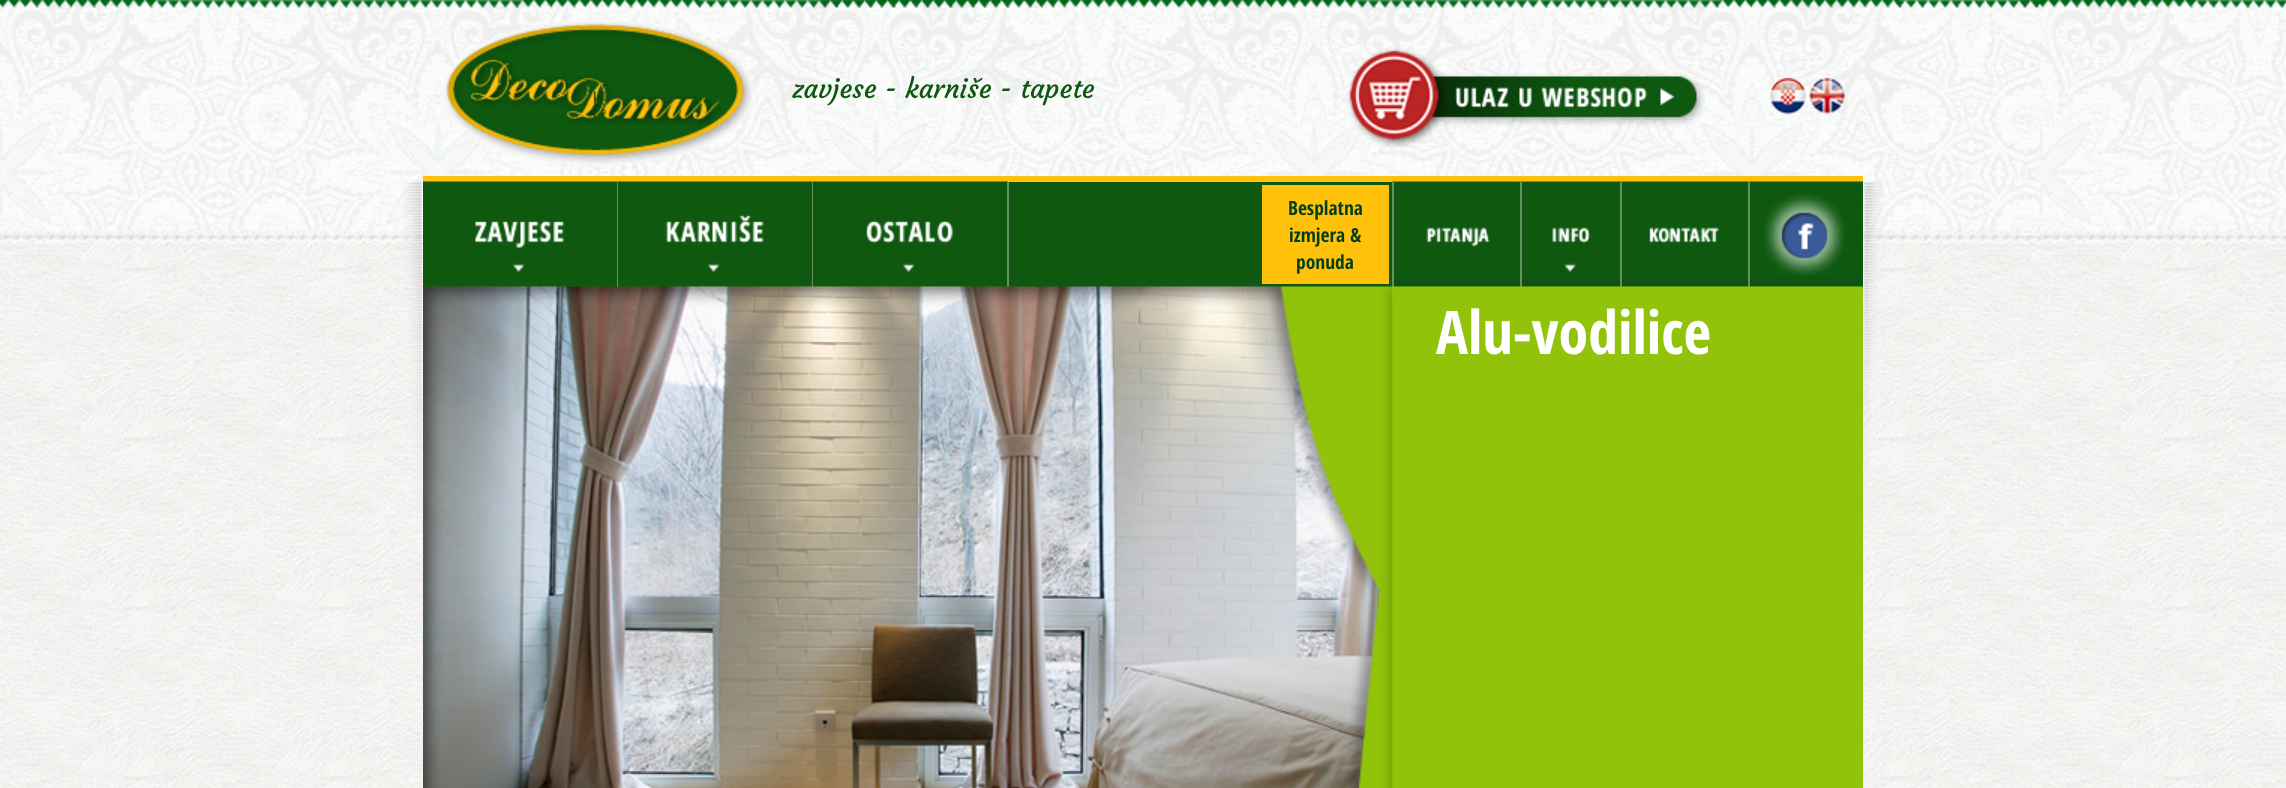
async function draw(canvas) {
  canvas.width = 2286
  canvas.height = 788
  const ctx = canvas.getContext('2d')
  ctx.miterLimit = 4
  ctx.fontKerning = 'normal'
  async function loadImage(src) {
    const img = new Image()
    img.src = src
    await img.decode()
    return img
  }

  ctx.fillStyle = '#fff'
  ctx.fillRect(0, 0, 2286, 788)
  ctx.drawImage(await loadImage('image0.png'), 0, 1, 2286, 787)
  ctx.drawImage(await loadImage('image1.png'), 0, 0, 2286, 245)
  ctx.fillStyle = '#ffc109'
  ctx.fillRect(423, 176, 1440, 6)
  ctx.drawImage(await loadImage('image2.png'), 443, 20, 311, 145)
  ctx.font = '27px Courgette'
  ctx.fillStyle = '#0d5810'
  ctx.fillText('zavjese - karniše - tapete', 792, 98)
  ctx.drawImage(await loadImage('image3.png'), 1347, 48, 358, 100)
  ctx.drawImage(await loadImage('image4.png'), 1769, 76, 38, 40)
  ctx.drawImage(await loadImage('image5.png'), 1808, 76, 39, 40)
  ctx.drawImage(await loadImage('image6.png'), 402, 181, 1481, 339)
  ctx.fillStyle = '#0e5810'
  ctx.fillRect(423, 182, 1440, 105)
  ctx.drawImage(await loadImage('image7.png'), 423, 181, 195, 106)
  ctx.fillStyle = '#629263'
  ctx.fillRect(617, 182, 2, 105)
  ctx.drawImage(await loadImage('image8.png'), 618, 181, 195, 106)
  ctx.fillRect(812, 182, 2, 105)
  ctx.drawImage(await loadImage('image9.png'), 813, 181, 195, 106)
  ctx.fillRect(1007, 182, 2, 105)
  ctx.fillStyle = '#ffc109'
  ctx.fillRect(1262, 185, 127, 99)
  ctx.font = 'bold 19.5px Open Sans Condensed'
  ctx.fillStyle = '#003f1f'
  ctx.fillText('Besplatna', 1288, 215)
  ctx.fillText('izmjera &', 1289, 242)
  ctx.fillText('ponuda', 1296, 269)
  ctx.drawImage(await loadImage('image10.png'), 1392, 181, 128, 106)
  ctx.fillStyle = '#629263'
  ctx.fillRect(1392, 182, 2, 105)
  ctx.drawImage(await loadImage('image11.png'), 1519, 181, 101, 106)
  ctx.fillRect(1520, 182, 2, 105)
  ctx.drawImage(await loadImage('image12.png'), 1620, 181, 128, 106)
  ctx.fillRect(1620, 182, 2, 105)
  ctx.drawImage(await loadImage('image13.png'), 1747, 181, 116, 106)
  ctx.fillRect(1748, 182, 2, 105)
  ctx.drawImage(await loadImage('image14.png'), 423, 286, 1440, 502)
  ctx.font = 'bold 60px Open Sans Condensed'
  ctx.fillStyle = '#fff'
  ctx.fillText('Alu-vodilice', 1436, 354)
}

draw(document.querySelector('canvas'))
